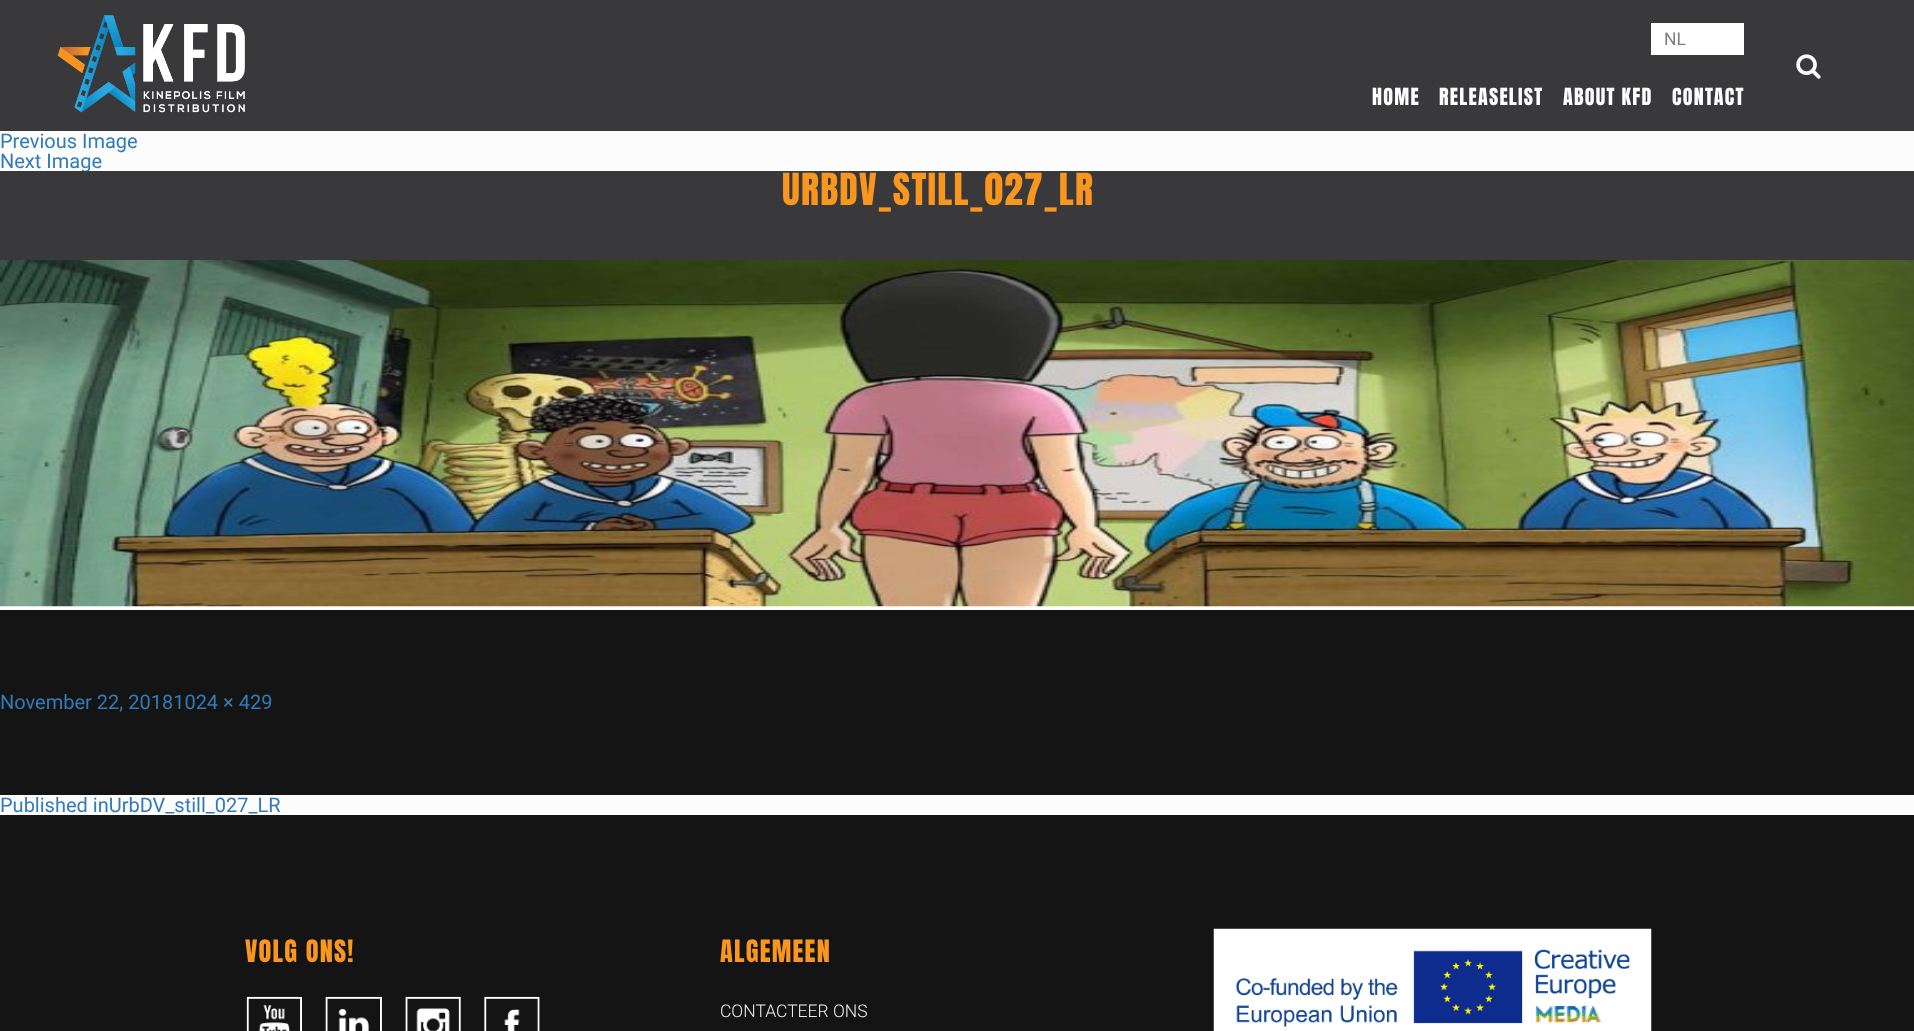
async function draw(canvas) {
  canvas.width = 1914
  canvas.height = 1031
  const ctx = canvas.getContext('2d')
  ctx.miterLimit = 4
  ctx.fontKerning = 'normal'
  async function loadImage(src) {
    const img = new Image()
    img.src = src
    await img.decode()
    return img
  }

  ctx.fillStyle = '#fcfcfc'
  ctx.fillRect(0, 0, 1914, 1031)
  ctx.fillStyle = '#39393b'
  ctx.fillRect(0, 0, 1914, 131)
  ctx.drawImage(await loadImage('image0.png'), 57, 15, 188, 98)
  ctx.fillStyle = '#fff'
  ctx.fillRect(1651, 23, 93, 32)
  ctx.font = '17.5px Roboto'
  ctx.fillStyle = '#808080'
  ctx.fillText('NL', 1664, 45)
  ctx.drawImage(await loadImage('image1.png'), 1796, 54, 25, 25)
  ctx.letterSpacing = '1.25px'
  ctx.font = '20px Anton'
  ctx.fillStyle = '#fcfcfc'
  ctx.fillText('HOME', 1372, 105)
  ctx.fillText('RELEASELIST', 1439, 105)
  ctx.fillText('ABOUT KFD', 1563, 105)
  ctx.fillText('CONTACT', 1672, 105)
  ctx.letterSpacing = '0px'
  ctx.font = '20px Roboto'
  ctx.fillStyle = '#337ab7'
  ctx.fillText('Previous Image', 0, 148)
  ctx.fillText('Next Image', 0, 168)
  ctx.fillStyle = '#39393b'
  ctx.fillRect(0, 171, 1914, 89)
  ctx.letterSpacing = '1.25px'
  ctx.font = '37.5px Anton'
  ctx.fillStyle = '#f9961e'
  ctx.fillText('URBDV_STILL_027_LR', 782, 205)
  ctx.drawImage(await loadImage('image2.png'), 0, 260, 1914, 347)
  ctx.fillStyle = '#141414'
  ctx.fillRect(0, 610, 1914, 185)
  ctx.letterSpacing = '0px'
  ctx.font = '20px Roboto'
  ctx.fillStyle = '#337ab7'
  ctx.fillText('November 22, 20181024 × 429', 0, 709)
  ctx.fillText('Published inUrbDV_still_027_LR', 0, 812)
  ctx.fillStyle = '#141414'
  ctx.fillRect(0, 815, 1914, 216)
  ctx.letterSpacing = '1.25px'
  ctx.font = '26.25px Anton'
  ctx.fillStyle = '#f9961e'
  ctx.fillText('VOLG ONS!', 245, 962)
  ctx.drawImage(await loadImage('image3.png'), 246, 996, 56, 35)
  ctx.drawImage(await loadImage('image4.png'), 325, 996, 57, 35)
  ctx.drawImage(await loadImage('image5.png'), 405, 996, 56, 35)
  ctx.drawImage(await loadImage('image6.png'), 484, 996, 56, 35)
  ctx.fillText('ALGEMEEN', 720, 962)
  ctx.letterSpacing = '0px'
  ctx.font = '300 17.5px Roboto'
  ctx.fillStyle = '#eaebed'
  ctx.fillText('CONTACTEER ONS', 720, 1017)
  ctx.drawImage(await loadImage('image7.png'), 1213, 928, 439, 103)
}

draw(document.querySelector('canvas'))
